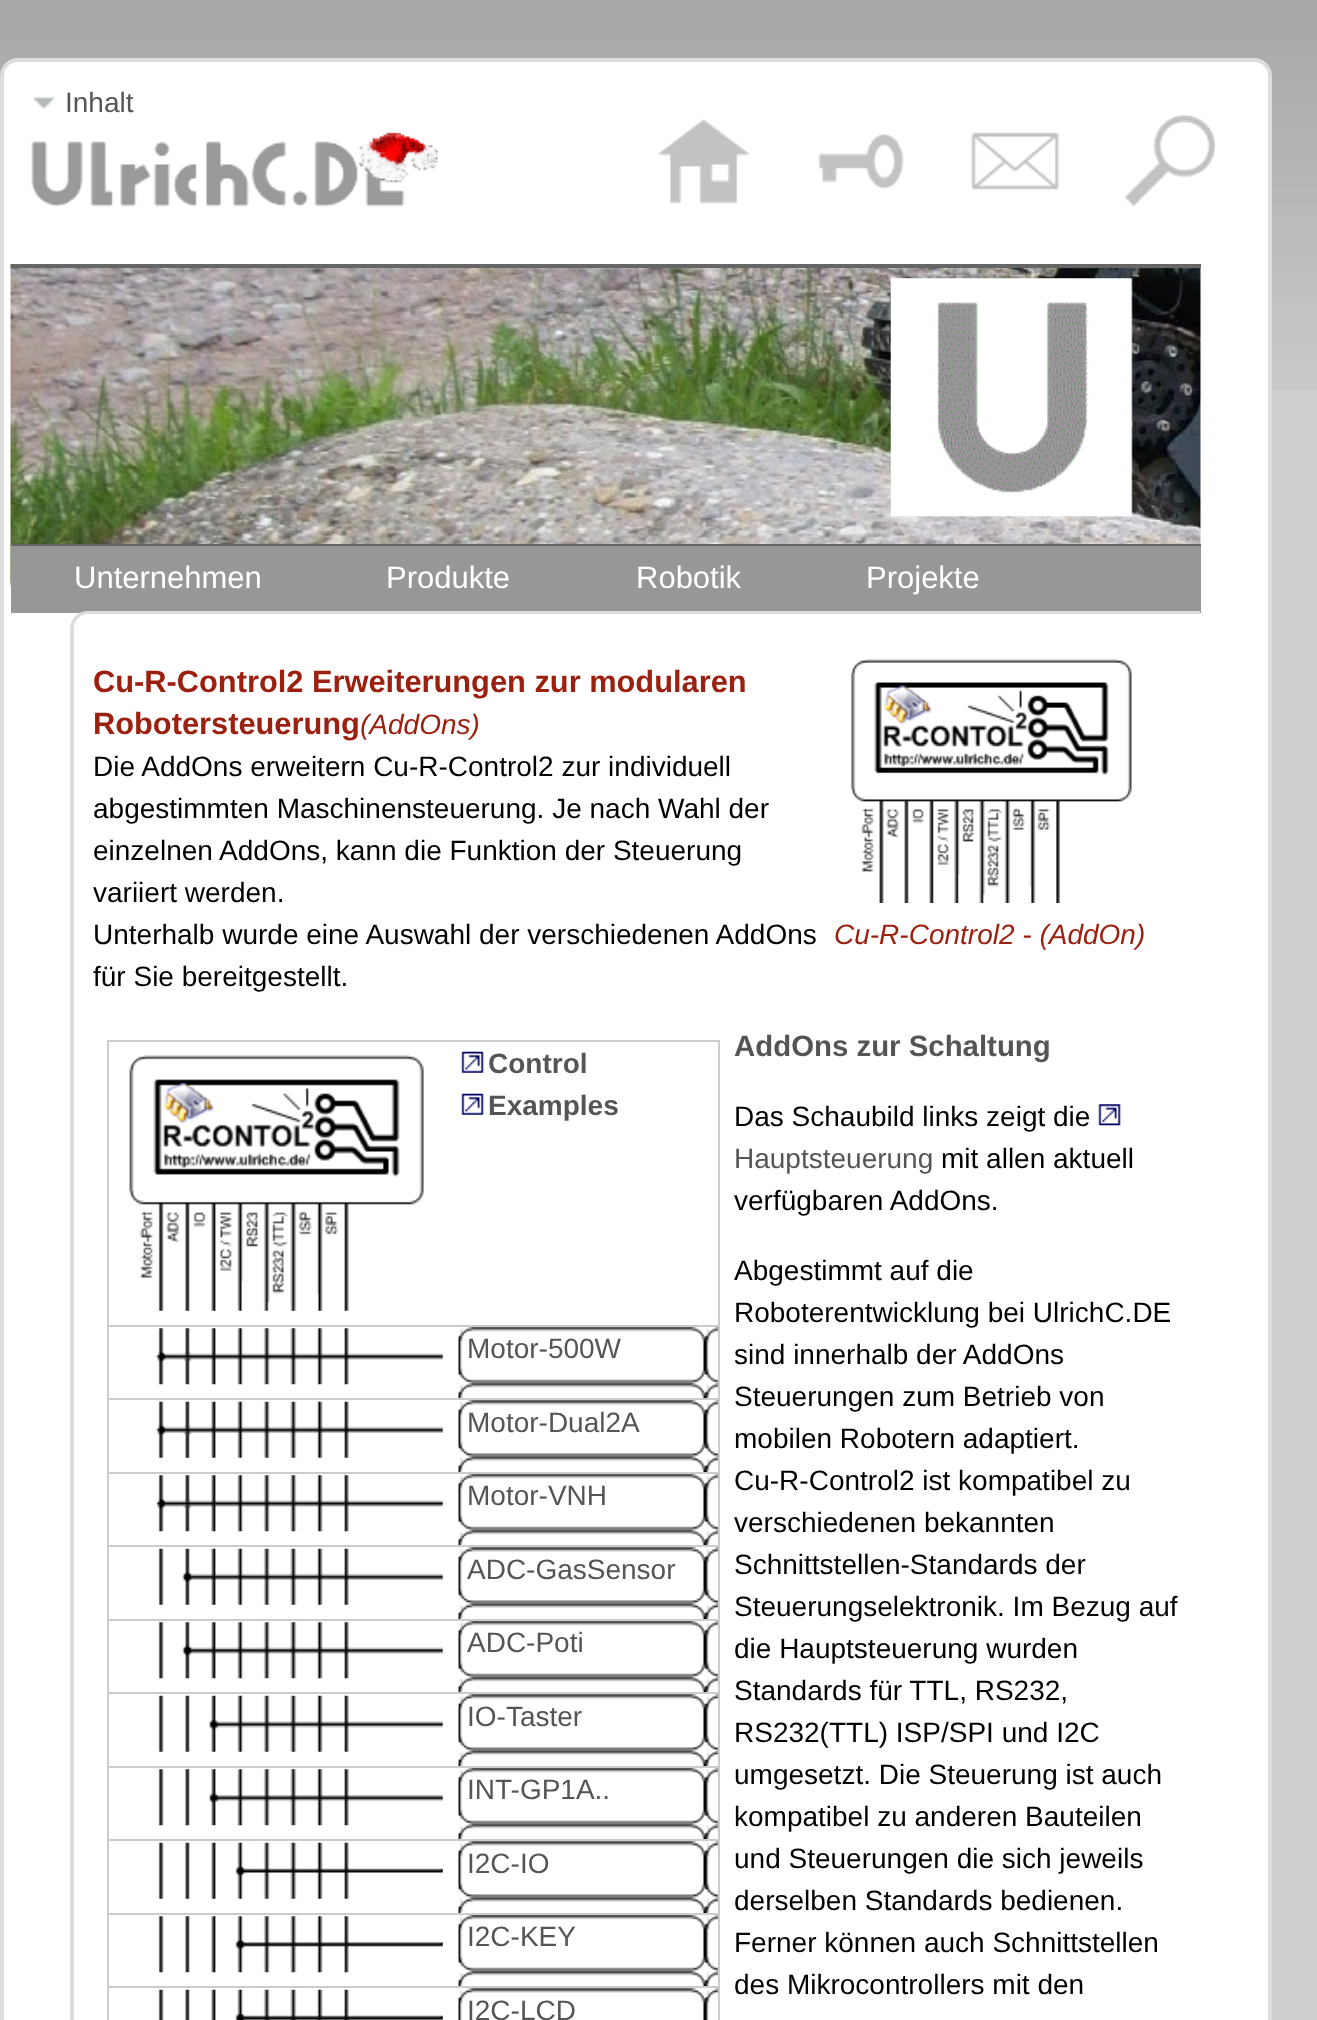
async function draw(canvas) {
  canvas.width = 1317
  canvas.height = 2020
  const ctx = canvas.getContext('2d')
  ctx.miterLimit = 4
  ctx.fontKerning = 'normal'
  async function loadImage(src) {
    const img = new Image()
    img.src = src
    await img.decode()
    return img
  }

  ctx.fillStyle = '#cecece'
  ctx.fillRect(0, 0, 1317, 2020)
  ctx.drawImage(await loadImage('image0.png'), 0, 0, 1317, 390)
  ctx.fillStyle = '#fff'
  ctx.beginPath()
  ctx.roundRect(2, 60, 1268, 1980, 16)
  ctx.fill()
  ctx.strokeStyle = '#ddd'
  ctx.lineWidth = 4
  ctx.stroke()
  ctx.drawImage(await loadImage('image1.png'), 33, 96, 22, 13)
  ctx.font = '28px Liberation Sans'
  ctx.fillStyle = '#555'
  ctx.fillText('Inhalt', 65, 112)
  ctx.drawImage(await loadImage('image2.png'), 31, 132, 408, 75)
  ctx.drawImage(await loadImage('image3.png'), 658, 119, 92, 85)
  ctx.drawImage(await loadImage('image4.png'), 818, 134, 86, 55)
  ctx.drawImage(await loadImage('image5.png'), 971, 132, 89, 58)
  ctx.drawImage(await loadImage('image6.png'), 1125, 115, 92, 92)
  ctx.drawImage(await loadImage('image7.png'), 10, 264, 1191, 323)
  ctx.fillStyle = '#666'
  ctx.fillRect(11, 264, 1190, 4)
  ctx.drawImage(await loadImage('image8.png'), 890, 278, 243, 239)
  ctx.fillStyle = '#979797'
  ctx.fillRect(11, 546, 1190, 65)
  ctx.fillStyle = '#666'
  ctx.fillRect(11, 544, 1190, 2)
  ctx.fillStyle = '#999'
  ctx.fillRect(11, 611, 1190, 2)
  ctx.font = '31px Liberation Sans'
  ctx.fillStyle = '#fff'
  ctx.fillText('Unternehmen', 74, 588)
  ctx.fillText('Produkte', 386, 588)
  ctx.fillText('Robotik', 636, 588)
  ctx.fillText('Projekte', 866, 588)
  ctx.fillStyle = '#ddd'
  ctx.beginPath()
  ctx.moveTo(88, 611)
  ctx.lineTo(1200, 611)
  ctx.lineTo(1200, 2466)
  ctx.lineTo(88, 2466)
  ctx.bezierCurveTo(78, 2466, 70, 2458, 70, 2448)
  ctx.lineTo(70, 628)
  ctx.bezierCurveTo(70, 619, 78, 611, 88, 611)
  ctx.closePath()
  ctx.moveTo(88, 614)
  ctx.lineTo(1200, 614)
  ctx.lineTo(1200, 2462)
  ctx.lineTo(88, 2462)
  ctx.bezierCurveTo(80, 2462, 74, 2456, 74, 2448)
  ctx.lineTo(74, 628)
  ctx.bezierCurveTo(74, 621, 80, 614, 88, 614)
  ctx.closePath()
  ctx.fill('evenodd')
  ctx.font = 'bold 30.8px Liberation Sans'
  ctx.fillStyle = '#9c2010'
  ctx.fillText('Cu-R-Control2 Erweiterungen zur modularen', 93, 692)
  ctx.fillText('Robotersteuerung', 93, 734)
  ctx.font = 'italic 28px Liberation Sans'
  ctx.fillText('(AddOns)', 360, 734)
  ctx.font = '28px Liberation Sans'
  ctx.fillStyle = '#000'
  ctx.fillText('Die AddOns erweitern Cu-R-Control2 zur individuell', 93, 776)
  ctx.fillText('abgestimmten Maschinensteuerung. Je nach Wahl der', 93, 818)
  ctx.fillText('einzelnen AddOns, kann die Funktion der Steuerung', 93, 860)
  ctx.fillText('variiert werden.', 93, 902)
  ctx.fillText('Unterhalb wurde eine Auswahl der verschiedenen AddOns', 93, 944)
  ctx.drawImage(await loadImage('image9.png'), 851, 659, 281, 244)
  ctx.font = 'italic 28px Liberation Sans'
  ctx.fillStyle = '#9c2010'
  ctx.fillText('Cu-R-Control2 - (AddOn)', 834, 944)
  ctx.font = '28px Liberation Sans'
  ctx.fillStyle = '#000'
  ctx.fillText('für Sie bereitgestellt.', 93, 986)
  ctx.font = 'bold 29.4px Liberation Sans'
  ctx.fillStyle = '#555'
  ctx.fillText('AddOns zur Schaltung', 734, 1056)
  ctx.fillStyle = '#ccc'
  ctx.fillRect(107, 1040, 612, 2)
  ctx.fillRect(718, 1040, 2, 980)
  ctx.fillRect(107, 1040, 2, 980)
  ctx.drawImage(await loadImage('image10.png'), 129, 1055, 295, 256)
  ctx.drawImage(await loadImage('image11.png'), 461, 1051, 23, 22)
  ctx.font = 'bold 28px Liberation Sans'
  ctx.fillStyle = '#555'
  ctx.fillText('Control', 488, 1073)
  ctx.drawImage(await loadImage('image11.png'), 461, 1093, 23, 22)
  ctx.fillText('Examples', 488, 1115)
  ctx.fillStyle = '#ccc'
  ctx.fillRect(107, 1325, 612, 2)
  ctx.drawImage(await loadImage('image12.png'), 155, 1328, 288, 57)
  ctx.drawImage(await loadImage('image13.png'), 458, 1327, 260, 71)
  ctx.font = '28px Liberation Sans'
  ctx.fillStyle = '#555'
  ctx.fillText('Motor-500W', 467, 1358)
  ctx.fillStyle = '#ccc'
  ctx.fillRect(107, 1398, 612, 2)
  ctx.drawImage(await loadImage('image14.png'), 155, 1401, 288, 57)
  ctx.drawImage(await loadImage('image15.png'), 458, 1400, 260, 72)
  ctx.fillStyle = '#555'
  ctx.fillText('Motor-Dual2A', 467, 1432)
  ctx.fillStyle = '#ccc'
  ctx.fillRect(107, 1472, 612, 2)
  ctx.drawImage(await loadImage('image12.png'), 155, 1475, 288, 57)
  ctx.drawImage(await loadImage('image13.png'), 458, 1474, 260, 71)
  ctx.fillStyle = '#555'
  ctx.fillText('Motor-VNH', 467, 1505)
  ctx.fillStyle = '#ccc'
  ctx.fillRect(107, 1545, 612, 2)
  ctx.drawImage(await loadImage('image16.png'), 158, 1548, 285, 57)
  ctx.drawImage(await loadImage('image15.png'), 458, 1547, 260, 72)
  ctx.fillStyle = '#555'
  ctx.fillText('ADC-GasSensor', 467, 1579)
  ctx.fillStyle = '#ccc'
  ctx.fillRect(107, 1619, 612, 2)
  ctx.drawImage(await loadImage('image17.png'), 158, 1622, 285, 57)
  ctx.drawImage(await loadImage('image13.png'), 458, 1621, 260, 71)
  ctx.fillStyle = '#555'
  ctx.fillText('ADC-Poti', 467, 1652)
  ctx.fillStyle = '#ccc'
  ctx.fillRect(107, 1692, 612, 2)
  ctx.drawImage(await loadImage('image18.png'), 158, 1695, 285, 57)
  ctx.drawImage(await loadImage('image15.png'), 458, 1694, 260, 72)
  ctx.fillStyle = '#555'
  ctx.fillText('IO-Taster', 467, 1726)
  ctx.fillStyle = '#ccc'
  ctx.fillRect(107, 1766, 612, 2)
  ctx.drawImage(await loadImage('image19.png'), 158, 1769, 285, 57)
  ctx.drawImage(await loadImage('image13.png'), 458, 1768, 260, 71)
  ctx.fillStyle = '#555'
  ctx.fillText('INT-GP1A..', 467, 1799)
  ctx.fillStyle = '#ccc'
  ctx.fillRect(107, 1839, 612, 2)
  ctx.drawImage(await loadImage('image20.png'), 158, 1842, 285, 57)
  ctx.drawImage(await loadImage('image15.png'), 458, 1841, 260, 72)
  ctx.fillStyle = '#555'
  ctx.fillText('I2C-IO', 467, 1873)
  ctx.fillStyle = '#ccc'
  ctx.fillRect(107, 1913, 612, 2)
  ctx.drawImage(await loadImage('image21.png'), 158, 1916, 285, 57)
  ctx.drawImage(await loadImage('image22.png'), 458, 1915, 260, 71)
  ctx.fillStyle = '#555'
  ctx.fillText('I2C-KEY', 467, 1946)
  ctx.fillStyle = '#ccc'
  ctx.fillRect(107, 1986, 612, 2)
  ctx.drawImage(await loadImage('image23.png'), 158, 1989, 285, 31)
  ctx.drawImage(await loadImage('image24.png'), 458, 1988, 260, 32)
  ctx.fillStyle = '#555'
  ctx.fillText('I2C-LCD', 467, 2020)
  ctx.fillStyle = '#000'
  ctx.fillText('Das Schaubild links zeigt die', 734, 1126)
  ctx.drawImage(await loadImage('image25.png'), 1098, 1104, 23, 22)
  ctx.fillStyle = '#555'
  ctx.fillText('Hauptsteuerung', 734, 1168)
  ctx.fillStyle = '#000'
  ctx.fillText('mit allen aktuell', 941, 1168)
  ctx.fillText('verfügbaren AddOns.', 734, 1210)
  ctx.fillText('Abgestimmt auf die', 734, 1280)
  ctx.fillText('Roboterentwicklung bei UlrichC.DE', 734, 1322)
  ctx.fillText('sind innerhalb der AddOns', 734, 1364)
  ctx.fillText('Steuerungen zum Betrieb von', 734, 1406)
  ctx.fillText('mobilen Robotern adaptiert.', 734, 1448)
  ctx.fillText('Cu-R-Control2 ist kompatibel zu', 734, 1490)
  ctx.fillText('verschiedenen bekannten', 734, 1532)
  ctx.fillText('Schnittstellen-Standards der', 734, 1574)
  ctx.fillText('Steuerungselektronik. Im Bezug auf', 734, 1616)
  ctx.fillText('die Hauptsteuerung wurden', 734, 1658)
  ctx.fillText('Standards für TTL, RS232,', 734, 1700)
  ctx.fillText('RS232(TTL) ISP/SPI und I2C', 734, 1742)
  ctx.fillText('umgesetzt. Die Steuerung ist auch', 734, 1784)
  ctx.fillText('kompatibel zu anderen Bauteilen', 734, 1826)
  ctx.fillText('und Steuerungen die sich jeweils', 734, 1868)
  ctx.fillText('derselben Standards bedienen.', 734, 1910)
  ctx.fillText('Ferner können auch Schnittstellen', 734, 1952)
  ctx.fillText('des Mikrocontrollers mit den', 734, 1994)
}

draw(document.querySelector('canvas'))
